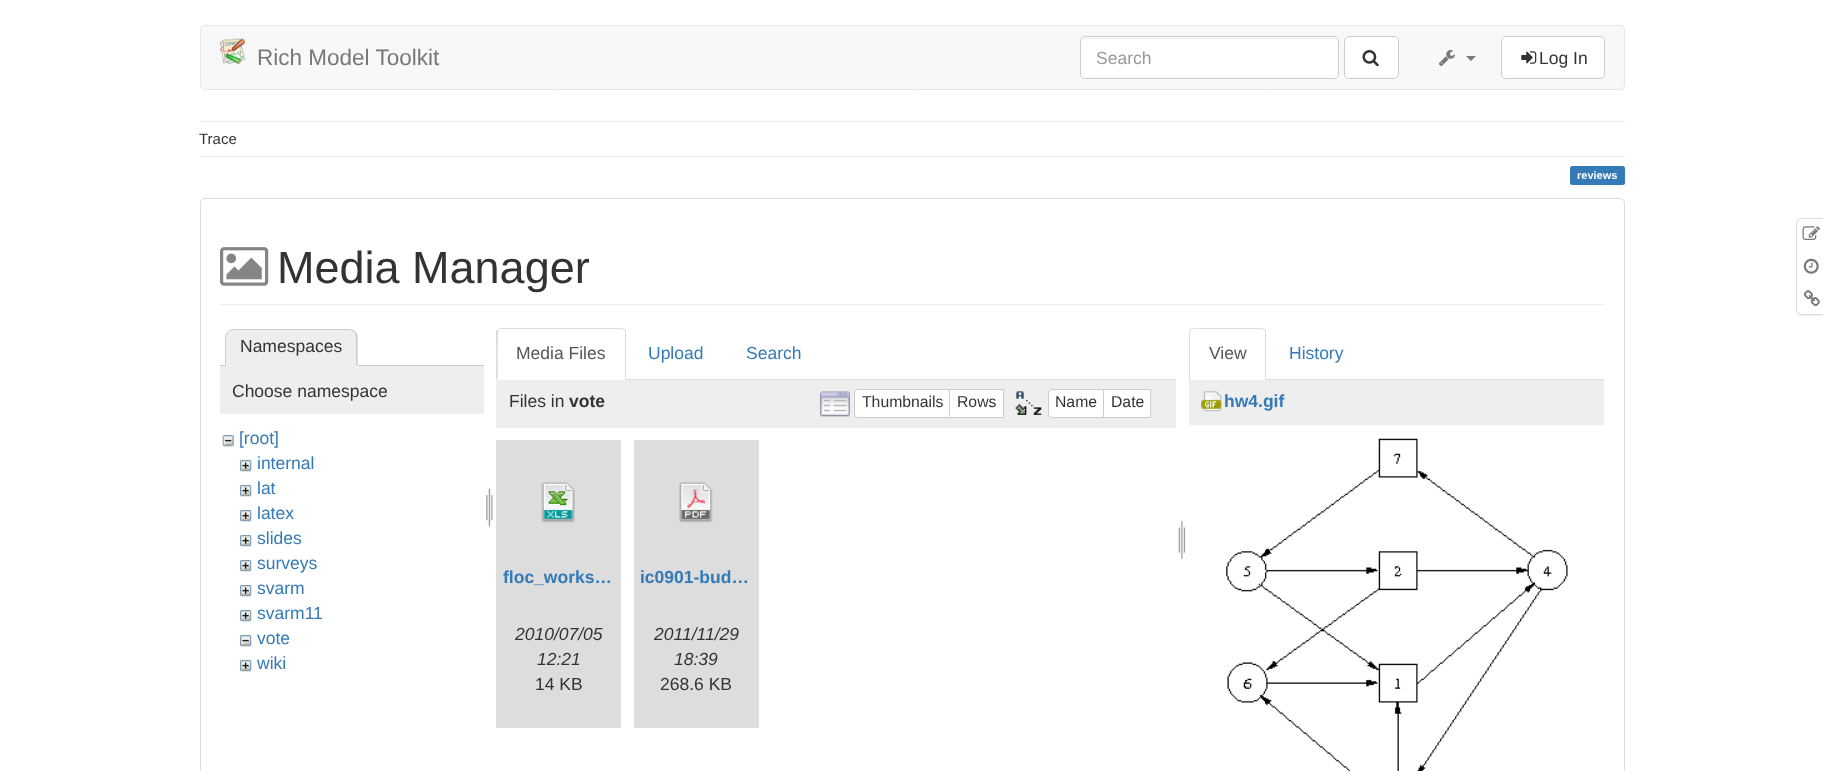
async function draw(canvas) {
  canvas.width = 1823
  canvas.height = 771
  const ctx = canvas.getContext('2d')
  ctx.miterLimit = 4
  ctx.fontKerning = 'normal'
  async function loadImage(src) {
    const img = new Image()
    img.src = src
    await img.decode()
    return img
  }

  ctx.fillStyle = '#fff'
  ctx.fillRect(0, 0, 1823, 771)
  ctx.fillStyle = '#f8f8f8'
  ctx.beginPath()
  ctx.roundRect(200.5, 25.5, 1424, 64, 4.5)
  ctx.fill()
  ctx.strokeStyle = '#e7e7e7'
  ctx.stroke()
  ctx.drawImage(await loadImage('image0.png'), 220, 38, 25, 26)
  ctx.font = '22.5px Liberation Sans'
  ctx.fillStyle = '#777'
  ctx.fillText('Rich Model Toolkit', 257, 65)
  ctx.fillStyle = '#fff'
  ctx.beginPath()
  ctx.roundRect(1080, 36, 259, 43, 5)
  ctx.fill()
  ctx.fillStyle = '#ececec'
  ctx.beginPath()
  ctx.moveTo(1085, 39)
  ctx.lineTo(1334, 39)
  ctx.bezierCurveTo(1336, 39, 1338, 40, 1338, 42)
  ctx.bezierCurveTo(1338, 40, 1336, 38, 1334, 38)
  ctx.lineTo(1085, 38)
  ctx.bezierCurveTo(1083, 38, 1081, 40, 1081, 42)
  ctx.bezierCurveTo(1081, 40, 1083, 39, 1085, 39)
  ctx.closePath()
  ctx.fill()
  ctx.beginPath()
  ctx.roundRect(1080.5, 36.5, 258, 42, 4.5)
  ctx.strokeStyle = '#ccc'
  ctx.stroke()
  ctx.font = '17.5px Liberation Sans'
  ctx.fillStyle = '#999'
  ctx.fillText('Search', 1096, 64)
  ctx.fillStyle = '#fff'
  ctx.beginPath()
  ctx.roundRect(1344.5, 36.5, 54, 42, 4.5)
  ctx.fill()
  ctx.stroke()
  ctx.drawImage(await loadImage('image1.png'), 1362, 50, 17, 17)
  ctx.drawImage(await loadImage('image2.png'), 1439, 50, 16, 16)
  ctx.fillStyle = '#777'
  ctx.beginPath()
  ctx.moveTo(1466, 56)
  ctx.lineTo(1476, 56)
  ctx.lineTo(1471, 61)
  ctx.closePath()
  ctx.fill()
  ctx.fillStyle = '#fff'
  ctx.beginPath()
  ctx.roundRect(1501.5, 36.5, 103, 42, 4.5)
  ctx.fill()
  ctx.stroke()
  ctx.drawImage(await loadImage('image3.png'), 1521, 51, 16, 13)
  ctx.fillStyle = '#333'
  ctx.fillText('Log In', 1539, 64)
  ctx.fillStyle = '#eee'
  ctx.fillRect(200, 121, 1425, 1)
  ctx.font = '15px Liberation Sans'
  ctx.fillStyle = '#333'
  ctx.fillText('Trace', 199, 144)
  ctx.fillStyle = '#eee'
  ctx.fillRect(200, 156, 1425, 1)
  ctx.fillStyle = '#337ab7'
  ctx.beginPath()
  ctx.roundRect(1570, 166, 55, 19, 2.5)
  ctx.fill()
  ctx.font = 'bold 11px Liberation Sans'
  ctx.fillStyle = '#fff'
  ctx.fillText('reviews', 1577, 179)
  ctx.beginPath()
  ctx.roundRect(200.5, 198.5, 1424, 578, 4.5)
  ctx.strokeStyle = '#ddd'
  ctx.stroke()
  ctx.fillStyle = '#eee'
  ctx.fillRect(220, 304, 1385, 1)
  ctx.drawImage(await loadImage('image4.png'), 220, 247, 49, 39)
  ctx.font = '45px Liberation Sans'
  ctx.fillStyle = '#333'
  ctx.fillText('Media Manager', 277, 283)
  ctx.fillStyle = '#ccc'
  ctx.fillRect(220, 365, 264, 1)
  ctx.fillStyle = '#eee'
  ctx.beginPath()
  ctx.roundRect(225, 329, 133, 37, [9, 9, 0, 0])
  ctx.fill()
  ctx.fillStyle = '#ccc'
  ctx.beginPath()
  ctx.moveTo(234, 329)
  ctx.bezierCurveTo(232, 329, 229, 330, 228, 332)
  ctx.bezierCurveTo(230, 331, 232, 330, 234, 330)
  ctx.lineTo(349, 330)
  ctx.bezierCurveTo(351, 330, 353, 331, 354, 332)
  ctx.lineTo(355, 331)
  ctx.bezierCurveTo(353, 330, 351, 329, 349, 329)
  ctx.closePath()
  ctx.fill()
  ctx.beginPath()
  ctx.moveTo(355, 331.5)
  ctx.bezierCurveTo(356, 332.5, 357, 333.5, 357.5, 335)
  ctx.lineTo(357.5, 366)
  ctx.lineTo(356, 365)
  ctx.lineTo(356, 338)
  ctx.bezierCurveTo(356, 335.5, 355.5, 333.5, 354, 332)
  ctx.closePath()
  ctx.fill()
  ctx.fillStyle = '#eee'
  ctx.beginPath()
  ctx.moveTo(357, 366)
  ctx.lineTo(225, 366)
  ctx.lineTo(226, 365)
  ctx.lineTo(356, 365)
  ctx.closePath()
  ctx.fill()
  ctx.fillStyle = '#ccc'
  ctx.beginPath()
  ctx.moveTo(225, 338)
  ctx.lineTo(225, 366)
  ctx.lineTo(226, 365)
  ctx.lineTo(226, 338)
  ctx.bezierCurveTo(226, 335.5, 227, 333.5, 228.5, 332)
  ctx.lineTo(228, 331.5)
  ctx.bezierCurveTo(226, 333, 225, 335.5, 225, 338)
  ctx.closePath()
  ctx.fill()
  ctx.font = '17.5px Liberation Sans'
  ctx.fillStyle = '#333'
  ctx.fillText('Namespaces', 240, 352)
  ctx.fillStyle = '#eee'
  ctx.fillRect(220, 366, 264, 48)
  ctx.fillStyle = '#333'
  ctx.fillText('Choose namespace', 232, 397)
  ctx.drawImage(await loadImage('image5.png'), 222, 435, 12, 12)
  ctx.fillStyle = '#337ab7'
  ctx.fillText('[root]', 239, 444)
  ctx.drawImage(await loadImage('image6.png'), 240, 460, 12, 12)
  ctx.fillText('internal', 257, 469)
  ctx.drawImage(await loadImage('image6.png'), 240, 485, 12, 12)
  ctx.fillText('lat', 257, 494)
  ctx.drawImage(await loadImage('image6.png'), 240, 510, 12, 12)
  ctx.fillText('latex', 257, 519)
  ctx.drawImage(await loadImage('image6.png'), 240, 535, 12, 12)
  ctx.fillText('slides', 257, 544)
  ctx.drawImage(await loadImage('image6.png'), 240, 560, 12, 12)
  ctx.fillText('surveys', 257, 569)
  ctx.drawImage(await loadImage('image7.png'), 240, 585, 12, 12)
  ctx.fillText('svarm', 257, 594)
  ctx.drawImage(await loadImage('image6.png'), 240, 610, 12, 12)
  ctx.fillText('svarm11', 257, 619)
  ctx.drawImage(await loadImage('image8.png'), 240, 635, 12, 12)
  ctx.fillText('vote', 257, 644)
  ctx.drawImage(await loadImage('image6.png'), 240, 660, 12, 12)
  ctx.fillText('wiki', 257, 669)
  ctx.drawImage(await loadImage('image9.png'), 486, 487, 7, 40)
  ctx.fillStyle = '#ddd'
  ctx.fillRect(626, 379, 550, 1)
  ctx.beginPath()
  ctx.moveTo(501, 328)
  ctx.lineTo(498, 329)
  ctx.lineTo(499, 330)
  ctx.bezierCurveTo(499, 329, 500, 329, 501, 329)
  ctx.lineTo(621, 329)
  ctx.lineTo(624, 330)
  ctx.lineTo(625, 329)
  ctx.lineTo(621, 328)
  ctx.closePath()
  ctx.fill()
  ctx.beginPath()
  ctx.moveTo(626, 380)
  ctx.lineTo(626, 331)
  ctx.lineTo(625, 329)
  ctx.lineTo(624, 330)
  ctx.lineTo(625, 331)
  ctx.lineTo(625, 379)
  ctx.closePath()
  ctx.fill()
  ctx.beginPath()
  ctx.moveTo(496, 380)
  ctx.lineTo(498, 378)
  ctx.bezierCurveTo(498, 372, 497, 332, 499, 330)
  ctx.lineTo(498, 329)
  ctx.lineTo(496, 331)
  ctx.closePath()
  ctx.fill()
  ctx.fillStyle = '#555'
  ctx.fillText('Media Files', 516, 359)
  ctx.fillStyle = '#337ab7'
  ctx.fillText('Upload', 648, 359)
  ctx.fillText('Search', 746, 359)
  ctx.fillStyle = '#eee'
  ctx.fillRect(496, 380, 680, 48)
  ctx.fillStyle = '#333'
  ctx.fillText('Files in', 509, 407)
  ctx.font = 'bold 17.5px Liberation Sans'
  ctx.fillText('vote', 569, 407)
  ctx.drawImage(await loadImage('image10.png'), 820, 391, 30, 26)
  ctx.fillStyle = '#fff'
  ctx.beginPath()
  ctx.roundRect(854.5, 389.5, 95, 28, [3.5, 0, 0, 3.5])
  ctx.fill()
  ctx.strokeStyle = '#ccc'
  ctx.stroke()
  ctx.font = '15.75px Liberation Sans'
  ctx.fillStyle = '#333'
  ctx.fillText('Thumbnails', 862, 407)
  ctx.fillStyle = '#fff'
  ctx.beginPath()
  ctx.rect(949.5, 389.5, 54, 28)
  ctx.fill()
  ctx.stroke()
  ctx.fillStyle = '#333'
  ctx.fillText('Rows', 957, 407)
  ctx.drawImage(await loadImage('image11.png'), 1015, 391, 27, 24)
  ctx.fillStyle = '#fff'
  ctx.beginPath()
  ctx.roundRect(1048.5, 389.5, 55, 28, [3.5, 0, 0, 3.5])
  ctx.fill()
  ctx.stroke()
  ctx.fillStyle = '#333'
  ctx.fillText('Name', 1055, 407)
  ctx.fillStyle = '#fff'
  ctx.beginPath()
  ctx.rect(1103.5, 389.5, 47, 28)
  ctx.fill()
  ctx.stroke()
  ctx.fillStyle = '#333'
  ctx.fillText('Date', 1111, 407)
  ctx.drawImage(await loadImage('image12.png'), 1178, 520, 8, 39)
  ctx.fillStyle = '#ddd'
  ctx.fillRect(496, 440, 125, 288)
  ctx.drawImage(await loadImage('image13.png'), 541, 482, 34, 41)
  ctx.font = 'bold 17.5px Liberation Sans'
  ctx.fillStyle = '#337ab7'
  ctx.fillText('floc_works…', 503, 583)
  ctx.font = 'italic 17.5px Liberation Sans'
  ctx.fillStyle = '#333'
  ctx.fillText('2010/07/05', 515, 640)
  ctx.fillText('12:21', 537, 665)
  ctx.font = '17.5px Liberation Sans'
  ctx.fillText('14 KB', 535, 690)
  ctx.fillStyle = '#ddd'
  ctx.fillRect(634, 440, 125, 288)
  ctx.drawImage(await loadImage('image14.png'), 679, 482, 34, 41)
  ctx.font = 'bold 17.5px Liberation Sans'
  ctx.fillStyle = '#337ab7'
  ctx.fillText('ic0901-bud…', 640, 583)
  ctx.font = 'italic 17.5px Liberation Sans'
  ctx.fillStyle = '#333'
  ctx.fillText('2011/11/29', 654, 640)
  ctx.fillText('18:39', 674, 665)
  ctx.font = '17.5px Liberation Sans'
  ctx.fillText('268.6 KB', 660, 690)
  ctx.fillStyle = '#ddd'
  ctx.fillRect(1266, 379, 338, 1)
  ctx.beginPath()
  ctx.moveTo(1194, 328)
  ctx.lineTo(1190, 329)
  ctx.lineTo(1191, 330)
  ctx.bezierCurveTo(1194, 328, 1205, 329, 1205, 329)
  ctx.lineTo(1261, 329)
  ctx.lineTo(1264, 330)
  ctx.lineTo(1265, 329)
  ctx.lineTo(1261, 328)
  ctx.closePath()
  ctx.fill()
  ctx.beginPath()
  ctx.moveTo(1266, 380)
  ctx.lineTo(1266, 331)
  ctx.lineTo(1265, 329)
  ctx.lineTo(1264, 330)
  ctx.lineTo(1265, 331)
  ctx.lineTo(1265, 379)
  ctx.closePath()
  ctx.fill()
  ctx.beginPath()
  ctx.moveTo(1190, 329)
  ctx.lineTo(1189, 331)
  ctx.lineTo(1189, 380)
  ctx.lineTo(1190, 379)
  ctx.lineTo(1190, 331)
  ctx.lineTo(1191, 330)
  ctx.closePath()
  ctx.fill()
  ctx.fillStyle = '#555'
  ctx.fillText('View', 1209, 359)
  ctx.fillStyle = '#337ab7'
  ctx.fillText('History', 1289, 359)
  ctx.fillStyle = '#eee'
  ctx.fillRect(1189, 380, 415, 45)
  ctx.drawImage(await loadImage('image15.png'), 1201, 391, 21, 21)
  ctx.font = 'bold 17.5px Liberation Sans'
  ctx.fillStyle = '#337ab7'
  ctx.fillText('hw4.gif', 1224, 407)
  ctx.drawImage(await loadImage('image16.png'), 1226, 438, 342, 333)
  ctx.fillStyle = '#0000000d'
  ctx.filter = 'blur(0.5px)'
  ctx.beginPath()
  ctx.roundRect(1796, 219, 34, 97, 5)
  ctx.fill()
  ctx.filter = 'none'
  ctx.fillStyle = '#fff'
  ctx.beginPath()
  ctx.roundRect(1796.5, 218.5, 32, 96, 4.5)
  ctx.fill()
  ctx.strokeStyle = '#ddd'
  ctx.stroke()
  ctx.drawImage(await loadImage('image17.png'), 1802, 226, 18, 14)
  ctx.drawImage(await loadImage('image18.png'), 1803, 258, 16, 16)
  ctx.drawImage(await loadImage('image19.png'), 1803, 290, 17, 17)
}

draw(document.querySelector('canvas'))
